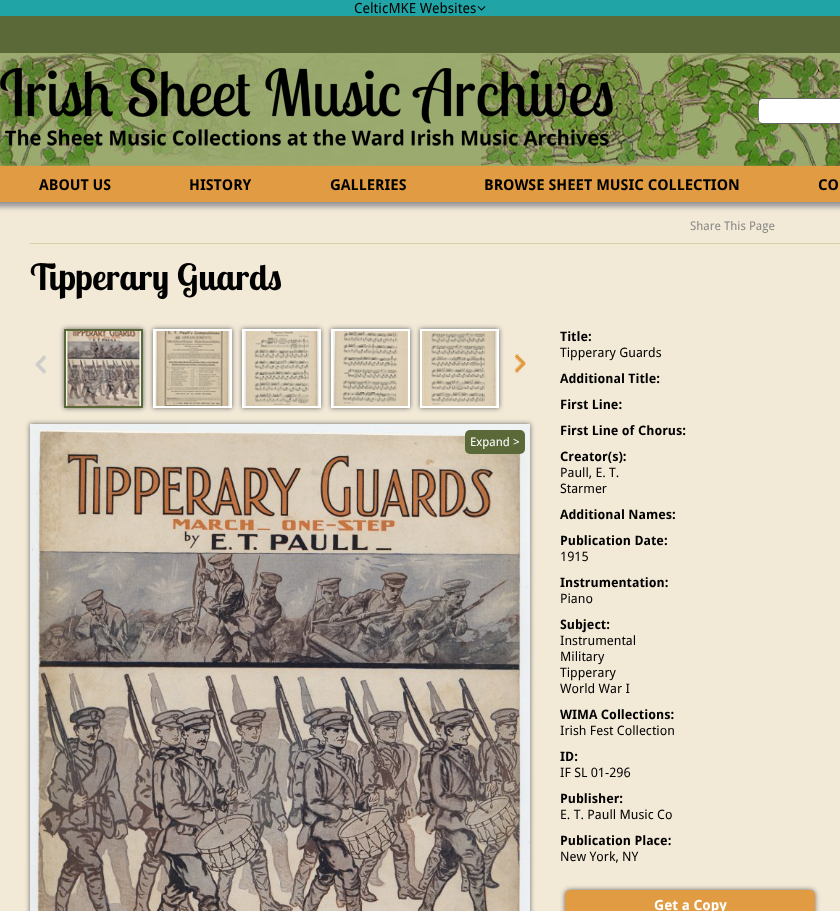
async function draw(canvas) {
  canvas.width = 840
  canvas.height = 911
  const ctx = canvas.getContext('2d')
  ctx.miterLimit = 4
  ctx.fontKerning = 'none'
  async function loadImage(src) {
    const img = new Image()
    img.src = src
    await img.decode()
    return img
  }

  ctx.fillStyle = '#5b6938'
  ctx.fillRect(0, 0, 840, 911)
  ctx.fillStyle = '#21a4a6'
  ctx.fillRect(0, 0, 840, 16)
  ctx.font = '14px Droid Sans'
  ctx.fillStyle = '#000'
  ctx.fillText('CelticMKE Websites', 354, 13)
  ctx.drawImage(await loadImage('image0.png'), 477, 6, 9, 5)
  ctx.drawImage(await loadImage('image1.png'), 481, 53, 359, 113)
  ctx.drawImage(await loadImage('image2.png'), 0, 53, 481, 113)
  ctx.drawImage(await loadImage('image3.png'), 0, 68, 613, 78)
  ctx.beginPath()
  ctx.roundRect(758.5, 98.5, 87, 25, 4.5)
  ctx.strokeStyle = '#666'
  ctx.stroke()
  ctx.fillStyle = '#fff'
  ctx.beginPath()
  ctx.roundRect(759, 99, 81, 24, [4, 0, 0, 4])
  ctx.fill()
  ctx.beginPath()
  ctx.moveTo(759, 103)
  ctx.bezierCurveTo(759, 107, 758, 119, 760, 122)
  ctx.lineTo(760, 100)
  ctx.closePath()
  ctx.moveTo(763, 99)
  ctx.lineTo(760, 100)
  ctx.lineTo(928, 100)
  ctx.lineTo(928, 122)
  ctx.lineTo(760, 122)
  ctx.lineTo(763, 123)
  ctx.lineTo(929, 123)
  ctx.lineTo(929, 99)
  ctx.closePath()
  ctx.fill('evenodd')
  ctx.fillStyle = '#f2e9d7'
  ctx.fillRect(0, 203, 840, 708)
  ctx.save()
  ctx.beginPath()
  ctx.rect(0, 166, 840, 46)
  ctx.clip()
  ctx.fillStyle = '#999'
  ctx.filter = 'blur(2.5px)'
  ctx.beginPath()
  ctx.rect(-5, 161, 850, 46)
  ctx.fill()
  ctx.filter = 'none'
  ctx.restore()
  ctx.fillStyle = '#e19b42'
  ctx.fillRect(0, 166, 840, 36)
  ctx.font = 'bold 15px Droid Sans'
  ctx.fillStyle = '#000'
  ctx.fillText('ABOUT US', 39, 190)
  ctx.fillText('HISTORY', 189, 190)
  ctx.fillText('GALLERIES', 330, 190)
  ctx.fillText('BROWSE SHEET MUSIC COLLECTION', 484, 190)
  ctx.fillText('CO', 818, 190)
  ctx.fillStyle = '#dad0a6'
  ctx.fillRect(30, 243, 810, 1)
  ctx.font = '12px Droid Sans'
  ctx.fillStyle = '#888'
  ctx.fillText('Share This Page', 690, 230)
  ctx.font = 'bold 36px Lobster Two'
  ctx.fillStyle = '#000'
  ctx.fillText('Tipperary Guards', 30, 290)
  ctx.drawImage(await loadImage('image4.png'), 35, 355, 11, 19)
  ctx.fillStyle = '#666'
  ctx.filter = 'blur(2.5px)'
  ctx.beginPath()
  ctx.rect(64, 329, 79, 79)
  ctx.fill()
  ctx.filter = 'none'
  ctx.strokeStyle = '#5b6938'
  ctx.lineWidth = 2
  ctx.strokeRect(65, 330, 77, 77)
  ctx.drawImage(await loadImage('image5.png'), 66, 331, 75, 75)
  ctx.filter = 'blur(2.5px)'
  ctx.beginPath()
  ctx.rect(153, 329, 79, 79)
  ctx.fill()
  ctx.filter = 'none'
  ctx.strokeStyle = '#fff'
  ctx.strokeRect(154, 330, 77, 77)
  ctx.drawImage(await loadImage('image6.png'), 155, 331, 75, 75)
  ctx.filter = 'blur(2.5px)'
  ctx.beginPath()
  ctx.rect(242, 329, 79, 79)
  ctx.fill()
  ctx.filter = 'none'
  ctx.strokeRect(243, 330, 77, 77)
  ctx.drawImage(await loadImage('image7.png'), 244, 331, 75, 75)
  ctx.filter = 'blur(2.5px)'
  ctx.beginPath()
  ctx.rect(331, 329, 79, 79)
  ctx.fill()
  ctx.filter = 'none'
  ctx.strokeRect(332, 330, 77, 77)
  ctx.drawImage(await loadImage('image8.png'), 333, 331, 75, 75)
  ctx.filter = 'blur(2.5px)'
  ctx.beginPath()
  ctx.rect(420, 329, 79, 79)
  ctx.fill()
  ctx.filter = 'none'
  ctx.strokeRect(421, 330, 77, 77)
  ctx.drawImage(await loadImage('image9.png'), 422, 331, 75, 75)
  ctx.drawImage(await loadImage('image10.png'), 515, 354, 11, 19)
  ctx.filter = 'blur(2.5px)'
  ctx.beginPath()
  ctx.rect(30, 424, 500, 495)
  ctx.fill()
  ctx.filter = 'none'
  ctx.drawImage(await loadImage('image11.png'), 30, 424, 500, 487)
  ctx.fillStyle = '#5b6938'
  ctx.beginPath()
  ctx.roundRect(465, 430, 60, 24, 5)
  ctx.fill()
  ctx.font = '12px Droid Sans'
  ctx.fillStyle = '#fff'
  ctx.fillText('Expand >', 470, 446)
  ctx.font = 'bold 13px Droid Sans'
  ctx.fillStyle = '#000'
  ctx.fillText('Title:', 560, 341)
  ctx.font = '13px Droid Sans'
  ctx.fillText('Tipperary Guards', 560, 357)
  ctx.font = 'bold 13px Droid Sans'
  ctx.fillText('Additional Title:', 560, 383)
  ctx.fillText('First Line:', 560, 409)
  ctx.fillText('First Line of Chorus:', 560, 435)
  ctx.fillText('Creator(s):', 560, 461)
  ctx.font = '13px Droid Sans'
  ctx.fillText('Paull, E. T.', 560, 477)
  ctx.fillText('Starmer', 560, 493)
  ctx.font = 'bold 13px Droid Sans'
  ctx.fillText('Additional Names:', 560, 519)
  ctx.fillText('Publication Date:', 560, 545)
  ctx.font = '13px Droid Sans'
  ctx.fillText('1915', 560, 561)
  ctx.font = 'bold 13px Droid Sans'
  ctx.fillText('Instrumentation:', 560, 587)
  ctx.font = '13px Droid Sans'
  ctx.fillText('Piano', 560, 603)
  ctx.font = 'bold 13px Droid Sans'
  ctx.fillText('Subject:', 560, 629)
  ctx.font = '13px Droid Sans'
  ctx.fillText('Instrumental', 560, 645)
  ctx.fillText('Military', 560, 661)
  ctx.fillText('Tipperary', 560, 677)
  ctx.fillText('World War I', 560, 693)
  ctx.font = 'bold 13px Droid Sans'
  ctx.fillText('WIMA Collections:', 560, 719)
  ctx.font = '13px Droid Sans'
  ctx.fillText('Irish Fest Collection', 560, 735)
  ctx.font = 'bold 13px Droid Sans'
  ctx.fillText('ID:', 560, 761)
  ctx.font = '13px Droid Sans'
  ctx.fillText('IF SL 01-296', 560, 777)
  ctx.font = 'bold 13px Droid Sans'
  ctx.fillText('Publisher:', 560, 803)
  ctx.font = '13px Droid Sans'
  ctx.fillText('E. T. Paull Music Co', 560, 819)
  ctx.font = 'bold 13px Droid Sans'
  ctx.fillText('Publication Place:', 560, 845)
  ctx.font = '13px Droid Sans'
  ctx.fillText('New York, NY', 560, 861)
  ctx.fillStyle = '#666'
  ctx.filter = 'blur(2.5px)'
  ctx.beginPath()
  ctx.roundRect(565, 890, 250, 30, 5)
  ctx.fill()
  ctx.filter = 'none'
  ctx.fillStyle = '#e19b42'
  ctx.beginPath()
  ctx.roundRect(565, 890, 250, 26, 5)
  ctx.fill()
  ctx.font = 'bold 14px Droid Sans'
  ctx.fillStyle = '#fff'
  ctx.fillText('Get a Copy', 654, 910)
}

draw(document.querySelector('canvas'))
